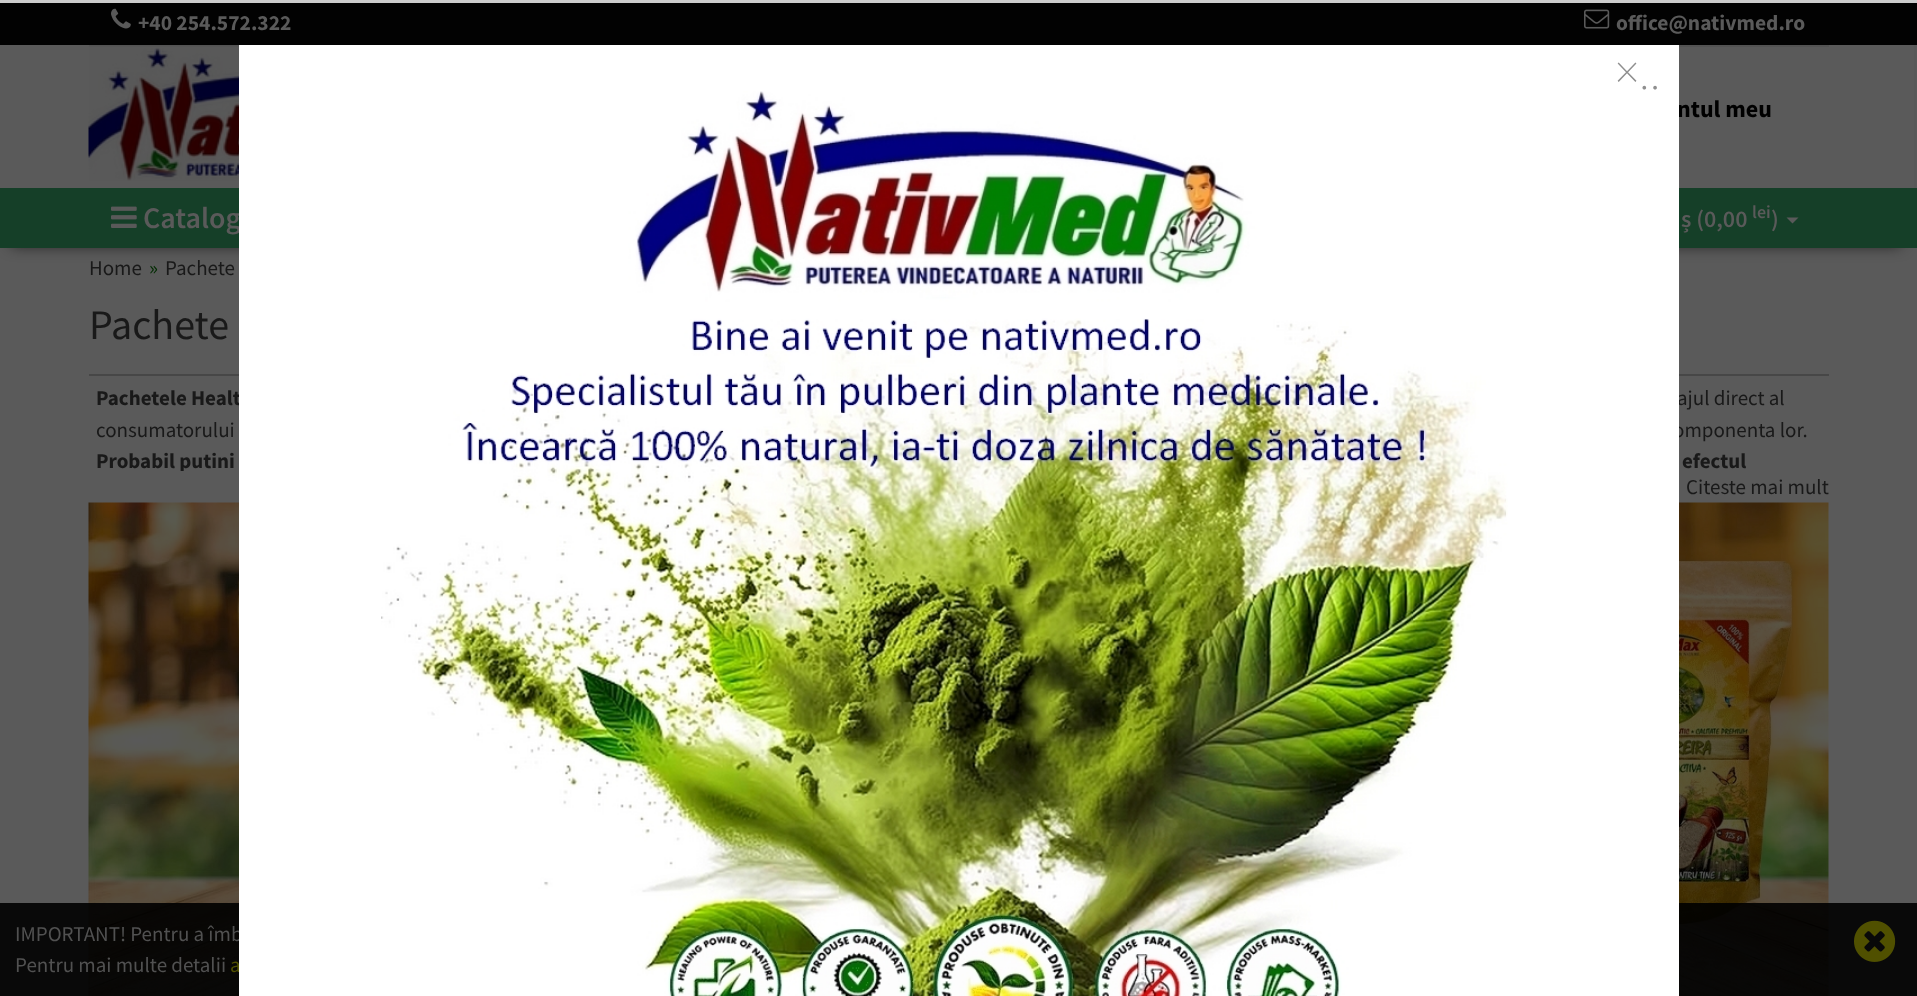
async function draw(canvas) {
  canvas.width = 1917
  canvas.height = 996
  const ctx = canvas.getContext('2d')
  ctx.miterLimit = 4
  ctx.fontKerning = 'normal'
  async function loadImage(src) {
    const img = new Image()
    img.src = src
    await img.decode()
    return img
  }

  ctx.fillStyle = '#5a5a5a'
  ctx.fillRect(0, 0, 1917, 996)
  ctx.fillStyle = '#000000bf'
  ctx.filter = 'blur(7.5px)'
  ctx.beginPath()
  ctx.rect(11, 24, 1890, 221)
  ctx.fill()
  ctx.filter = 'none'
  ctx.fillStyle = '#ccc'
  ctx.fillRect(0, 0, 1917, 3)
  ctx.fillStyle = '#5a5a5a'
  ctx.fillRect(0, 45, 1914, 143)
  ctx.fillStyle = '#020202'
  ctx.fillRect(0, 3, 1917, 42)
  ctx.drawImage(await loadImage('image0.png'), 111, 8, 20, 21)
  ctx.font = 'bold 21.5px Source Sans Pro'
  ctx.fillStyle = '#5a5a5a'
  ctx.fillText('+40 254.572.322', 138, 30)
  ctx.drawImage(await loadImage('image1.png'), 1584, 9, 26, 20)
  ctx.fillText('office@nativmed.ro', 1616, 30)
  ctx.fillStyle = '#535353'
  ctx.fillRect(89, 45, 1740, 2)
  ctx.drawImage(await loadImage('image2.png'), 88, 46, 151, 135)
  ctx.font = 'bold 24px Source Sans Pro'
  ctx.fillStyle = '#000'
  ctx.fillText('ntul meu', 1677, 117)
  ctx.fillStyle = '#153f28'
  ctx.fillRect(0, 188, 1917, 60)
  ctx.drawImage(await loadImage('image3.png'), 111, 206, 26, 22)
  ctx.font = '600 30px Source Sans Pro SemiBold'
  ctx.fillStyle = '#5a5a5a'
  ctx.fillText('Catalog', 143, 228)
  ctx.font = '600 24px Source Sans Pro SemiBold'
  ctx.fillText('ș (0,00', 1681, 227)
  ctx.font = '600 18px Source Sans Pro SemiBold'
  ctx.fillText('lei', 1752, 218)
  ctx.font = '600 24px Source Sans Pro SemiBold'
  ctx.fillText(')', 1771, 227)
  ctx.beginPath()
  ctx.moveTo(1786.5, 217.5)
  ctx.lineTo(1798.5, 217.5)
  ctx.lineTo(1792.5, 223.5)
  ctx.closePath()
  ctx.fill()
  ctx.fillStyle = '#474747'
  ctx.fillRect(89, 374, 1740, 2)
  ctx.font = 'bold 21px Source Sans Pro'
  ctx.fillStyle = '#191919'
  ctx.fillText('Pachetele Healt', 96, 405)
  ctx.font = '21px Source Sans Pro'
  ctx.fillText('ajul direct al', 1677, 405)
  ctx.fillText('omponenta lor.', 1673, 437)
  ctx.drawImage(await loadImage('image5.png'), 88, 502, 1741, 494)
  ctx.fillStyle = '#000000e6'
  ctx.fillRect(0, 903, 1917, 93)
  ctx.fillStyle = '#515151'
  ctx.fillText('IMPORTANT! Pentru a îmb', 15, 941)
  ctx.fillStyle = '#515101'
  ctx.fillText('a', 230, 972)
  ctx.fillStyle = '#fff'
  ctx.fillRect(239, 45, 1440, 951)
  ctx.font = '200 51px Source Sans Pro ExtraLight'
  ctx.fillStyle = '#8f8f8f'
  ctx.fillText('×..', 1615, 89)
  ctx.drawImage(await loadImage('image4.png'), 381, 91, 1127, 905)
  ctx.font = '21px Source Sans Pro'
  ctx.fillStyle = '#191919'
  ctx.fillText('Home', 89, 275)
  ctx.fillStyle = '#002c00'
  ctx.fillText('»', 149, 275)
  ctx.fillStyle = '#191919'
  ctx.fillText('Pachete', 165, 275)
  ctx.font = '42px Source Sans Pro'
  ctx.fillText('Pachete', 89, 339)
  ctx.font = '21px Source Sans Pro'
  ctx.fillText('consumatorului', 96, 437)
  ctx.save()
  ctx.beginPath()
  ctx.rect(89, 375, 1740, 96)
  ctx.clip()
  ctx.font = 'bold 21px Source Sans Pro'
  ctx.fillText('Probabil putini', 96, 468)
  ctx.restore()
  ctx.font = 'bold 21px Source Sans Pro'
  ctx.fillText('efectul', 1682, 468)
  ctx.font = '21px Source Sans Pro'
  ctx.fillText('Citeste mai mult', 1686, 494)
  ctx.fillStyle = '#515151'
  ctx.fillText('Pentru mai multe detalii', 15, 972)
  ctx.drawImage(await loadImage('image6.png'), 1854, 920, 42, 42)
}

draw(document.querySelector('canvas'))
